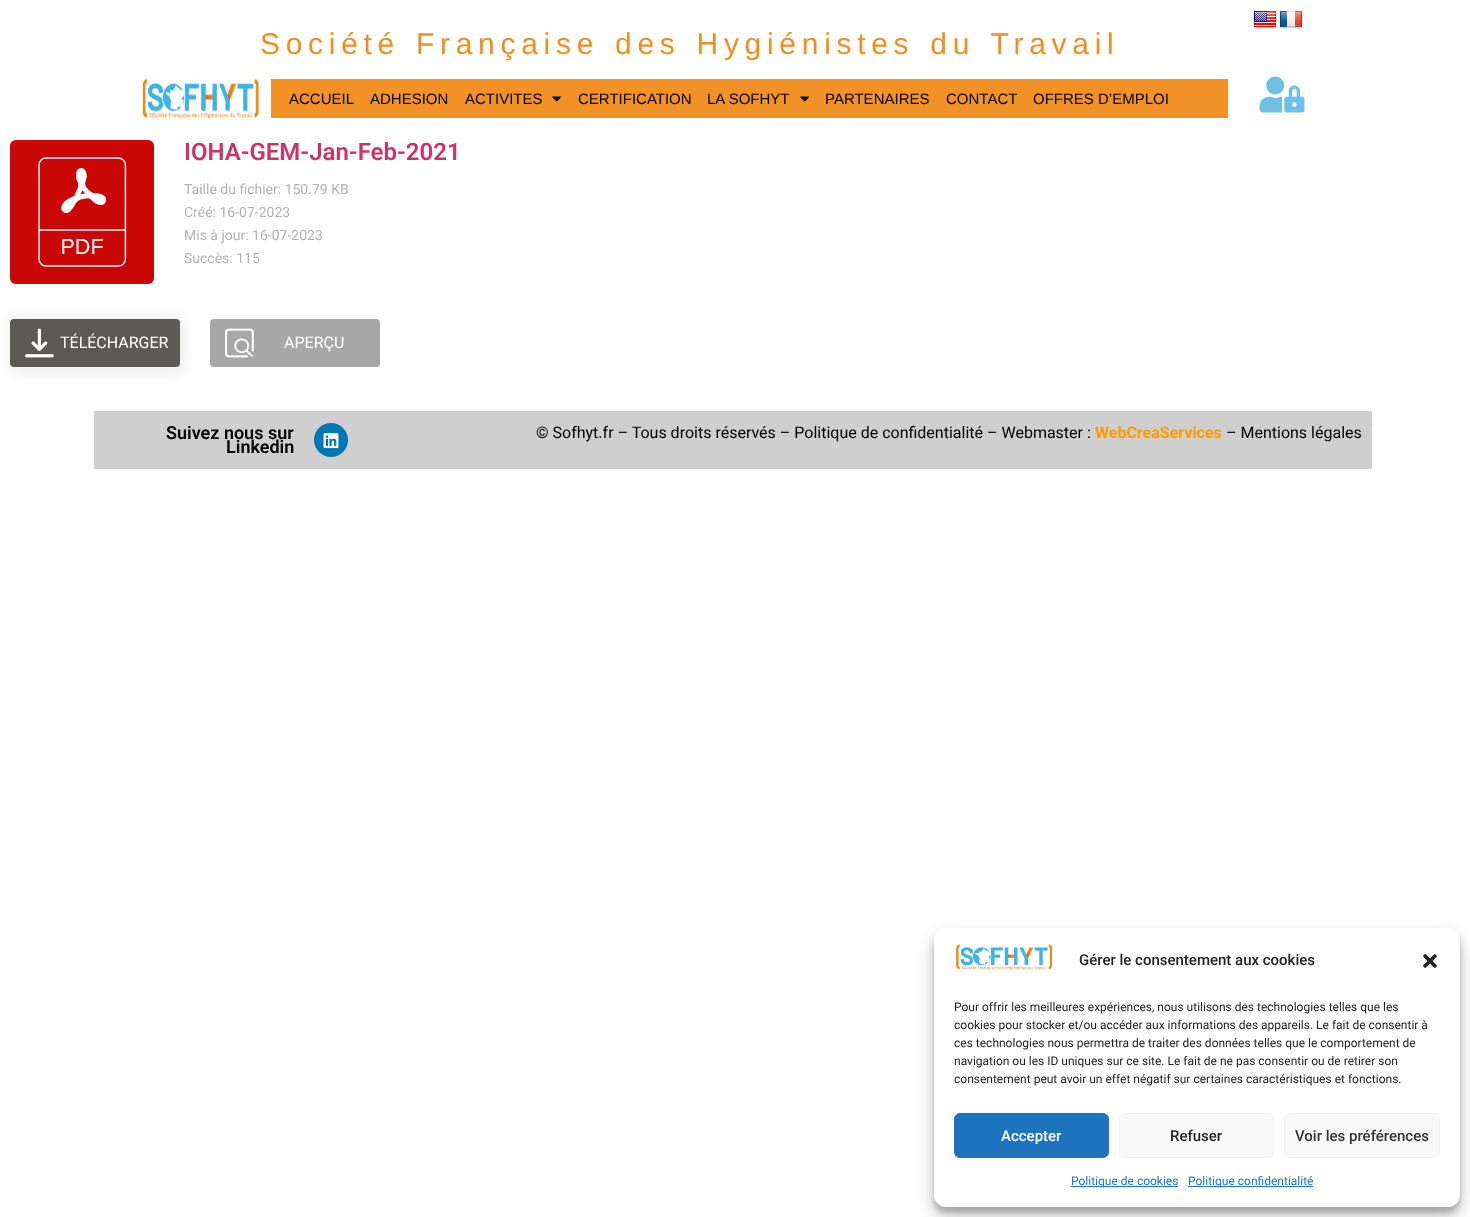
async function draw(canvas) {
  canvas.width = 1470
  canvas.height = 1217
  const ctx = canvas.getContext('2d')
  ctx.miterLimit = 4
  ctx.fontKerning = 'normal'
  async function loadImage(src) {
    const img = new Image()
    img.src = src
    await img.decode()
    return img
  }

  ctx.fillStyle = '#fff'
  ctx.fillRect(0, 0, 1470, 1217)
  ctx.drawImage(await loadImage('image0.png'), 1253, 11, 24, 18)
  ctx.drawImage(await loadImage('image1.png'), 1279, 11, 24, 18)
  ctx.letterSpacing = '5.7px'
  ctx.wordSpacing = '2px'
  ctx.font = '30px Liberation Sans'
  ctx.fillStyle = '#f28e20'
  ctx.fillText('Société Française des Hygiénistes du Travail', 260, 54)
  ctx.drawImage(await loadImage('image2.png'), 142, 78, 117, 41)
  ctx.fillStyle = '#f29125'
  ctx.fillRect(271, 79, 957, 39)
  ctx.letterSpacing = '0px'
  ctx.wordSpacing = '0px'
  ctx.font = '15px Liberation Sans'
  ctx.fillStyle = '#000'
  ctx.fillText('ACCUEIL', 289, 104)
  ctx.fillText('ADHESION', 370, 104)
  ctx.fillText('ACTIVITES', 465, 104)
  ctx.drawImage(await loadImage('image3.png'), 552, 96, 9, 6)
  ctx.fillText('CERTIFICATION', 578, 104)
  ctx.fillText('LA SOFHYT', 707, 104)
  ctx.drawImage(await loadImage('image3.png'), 800, 96, 9, 6)
  ctx.fillText('PARTENAIRES', 825, 104)
  ctx.fillText('CONTACT', 946, 104)
  ctx.fillText('OFFRES D’EMPLOI', 1033, 104)
  ctx.drawImage(await loadImage('image4.png'), 1259, 76, 46, 37)
  ctx.drawImage(await loadImage('image5.png'), 10, 140, 144, 144)
  ctx.font = '600 24px Roboto'
  ctx.fillStyle = '#c36'
  ctx.fillText('IOHA-GEM-Jan-Feb-2021', 184, 160)
  ctx.font = '14px Roboto'
  ctx.fillStyle = '#b3b3b3'
  ctx.fillText('Taille du fichier: 150.79 KB', 184, 194)
  ctx.fillText('Créé: 16-07-2023', 184, 217)
  ctx.fillText('Mis à jour: 16-07-2023', 184, 240)
  ctx.fillText('Succès: 115', 184, 263)
  ctx.fillStyle = '#f0f0f0'
  ctx.filter = 'blur(6px)'
  ctx.beginPath()
  ctx.roundRect(7, 316, 180, 58, 9)
  ctx.fill()
  ctx.filter = 'none'
  ctx.fillStyle = '#5c5a57'
  ctx.beginPath()
  ctx.roundRect(10, 319, 170, 48, 4)
  ctx.fill()
  ctx.drawImage(await loadImage('image6.png'), 25, 328, 29, 30)
  ctx.font = '16px Roboto'
  ctx.fillStyle = '#fff'
  ctx.fillText('TÉLÉCHARGER', 60, 348)
  ctx.fillStyle = '#a7a7a7'
  ctx.beginPath()
  ctx.roundRect(210, 319, 170, 48, 4)
  ctx.fill()
  ctx.drawImage(await loadImage('image7.png'), 225, 328, 29, 30)
  ctx.fillStyle = '#fff'
  ctx.fillText('APERÇU', 284, 348)
  ctx.fillStyle = '#cfcfcf'
  ctx.fillRect(1372, 424, 1, 1)
  ctx.drawImage(await loadImage('image8.png'), 1372, 412, 1, 13)
  ctx.fillRect(94, 411, 1278, 58)
  ctx.font = '600 18px Roboto'
  ctx.fillStyle = '#000'
  ctx.fillText('Suivez nous sur', 166, 439)
  ctx.fillText('Linkedin', 226, 453)
  ctx.fillStyle = '#0077b5'
  ctx.beginPath()
  ctx.arc(331, 440, 17, 0, 2 * Math.PI)
  ctx.fill()
  ctx.drawImage(await loadImage('image9.png'), 323, 433, 16, 16)
  ctx.font = '16px Roboto'
  ctx.fillStyle = '#000'
  ctx.fillText('© Sofhyt.fr – Tous droits réservés – Politique de confidentialité – Webmaster :', 536, 438)
  ctx.font = 'bold 16px Roboto'
  ctx.fillStyle = '#f90'
  ctx.fillText('WebCreaServices', 1095, 438)
  ctx.font = '16px Roboto'
  ctx.fillStyle = '#000'
  ctx.fillText('– Mentions légales', 1226, 438)
  ctx.fillStyle = '#0000003b'
  ctx.filter = 'blur(3px)'
  ctx.beginPath()
  ctx.roundRect(934, 934, 526, 279, 12)
  ctx.fill()
  ctx.filter = 'none'
  ctx.fillStyle = '#00000030'
  ctx.filter = 'blur(10px)'
  ctx.beginPath()
  ctx.roundRect(934, 938, 526, 279, 12)
  ctx.fill()
  ctx.filter = 'none'
  ctx.fillStyle = '#fff'
  ctx.beginPath()
  ctx.roundRect(934, 928, 526, 279, 12)
  ctx.fill()
  ctx.drawImage(await loadImage('image10.png'), 956, 944, 96, 26)
  ctx.font = '500 15px Roboto'
  ctx.fillStyle = '#222'
  ctx.fillText('Gérer le consentement aux cookies', 1079, 965)
  ctx.drawImage(await loadImage('image11.png'), 1423, 954, 14, 14)
  ctx.font = '12px Roboto'
  ctx.fillText('Pour offrir les meilleures expériences, nous utilisons des technologies telles que les', 954, 1011)
  ctx.fillText('cookies pour stocker et/ou accéder aux informations des appareils. Le fait de consentir à', 954, 1029)
  ctx.fillText('ces technologies nous permettra de traiter des données telles que le comportement de', 954, 1047)
  ctx.fillText('navigation ou les ID uniques sur ce site. Le fait de ne pas consentir ou de retirer son', 954, 1065)
  ctx.fillText('consentement peut avoir un effet négatif sur certaines caractéristiques et fonctions.', 954, 1083)
  ctx.fillStyle = '#1e73be'
  ctx.beginPath()
  ctx.roundRect(954.5, 1113.5, 154, 44, 5.5)
  ctx.fill()
  ctx.strokeStyle = '#1e73be'
  ctx.stroke()
  ctx.font = '500 15px Roboto'
  ctx.fillStyle = '#fff'
  ctx.fillText('Accepter', 1001, 1141)
  ctx.fillStyle = '#f9f9f9'
  ctx.beginPath()
  ctx.roundRect(1119.5, 1113.5, 154, 44, 5.5)
  ctx.fill()
  ctx.strokeStyle = '#f2f2f2'
  ctx.stroke()
  ctx.fillStyle = '#222'
  ctx.fillText('Refuser', 1170, 1141)
  ctx.fillStyle = '#f9f9f9'
  ctx.beginPath()
  ctx.roundRect(1284.5, 1113.5, 155, 44, 5.5)
  ctx.fill()
  ctx.stroke()
  ctx.fillStyle = '#333'
  ctx.fillText('Voir les préférences', 1295, 1141)
  ctx.fillStyle = '#1e73be'
  ctx.fillRect(1071, 1186, 107, 1)
  ctx.font = '12px Roboto'
  ctx.fillText('Politique de cookies', 1071, 1185)
  ctx.fillRect(1188, 1186, 125, 1)
  ctx.fillText('Politique confidentialité', 1188, 1185)
}

draw(document.querySelector('canvas'))
